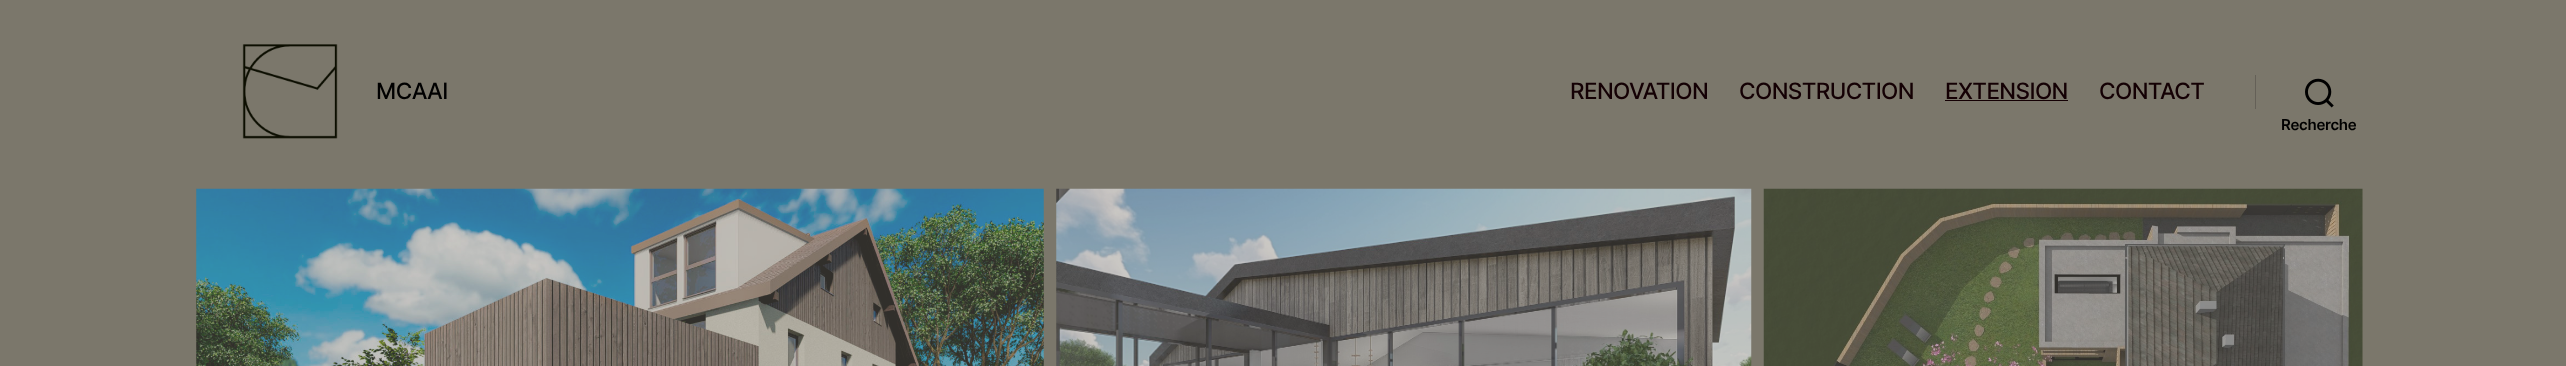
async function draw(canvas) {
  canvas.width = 2566
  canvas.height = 366
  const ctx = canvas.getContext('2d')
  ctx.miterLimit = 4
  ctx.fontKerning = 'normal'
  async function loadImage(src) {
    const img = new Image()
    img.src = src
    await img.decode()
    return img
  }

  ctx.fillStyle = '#7b776b'
  ctx.fillRect(0, 0, 2566, 366)
  ctx.drawImage(await loadImage('image0.png'), 242, 44, 96, 95)
  ctx.letterSpacing = '-0.5px'
  ctx.font = '500 22.5px Inter'
  ctx.fillStyle = '#000'
  ctx.fillText('MCAAI', 376, 99)
  ctx.letterSpacing = '-0.6px'
  ctx.fillStyle = '#140004'
  ctx.fillText('RENOVATION', 1570, 99)
  ctx.fillText('CONSTRUCTION', 1739, 99)
  ctx.fillText('EXTENSION', 1945, 99)
  ctx.fillRect(1945, 100, 123, 1)
  ctx.fillText('CONTACT', 2099, 99)
  ctx.fillStyle = '#646057'
  ctx.fillRect(2255, 75, 1, 34)
  ctx.drawImage(await loadImage('image1.png'), 2305, 78, 29, 30)
  ctx.letterSpacing = '-0.25px'
  ctx.font = '600 15px Inter'
  ctx.fillStyle = '#000'
  ctx.fillText('Recherche', 2281, 130)
  ctx.drawImage(await loadImage('image2.png'), 196, 188, 848, 178)
  ctx.drawImage(await loadImage('image3.png'), 1056, 188, 696, 178)
  ctx.drawImage(await loadImage('image4.png'), 1763, 188, 600, 178)
}

draw(document.querySelector('canvas'))
